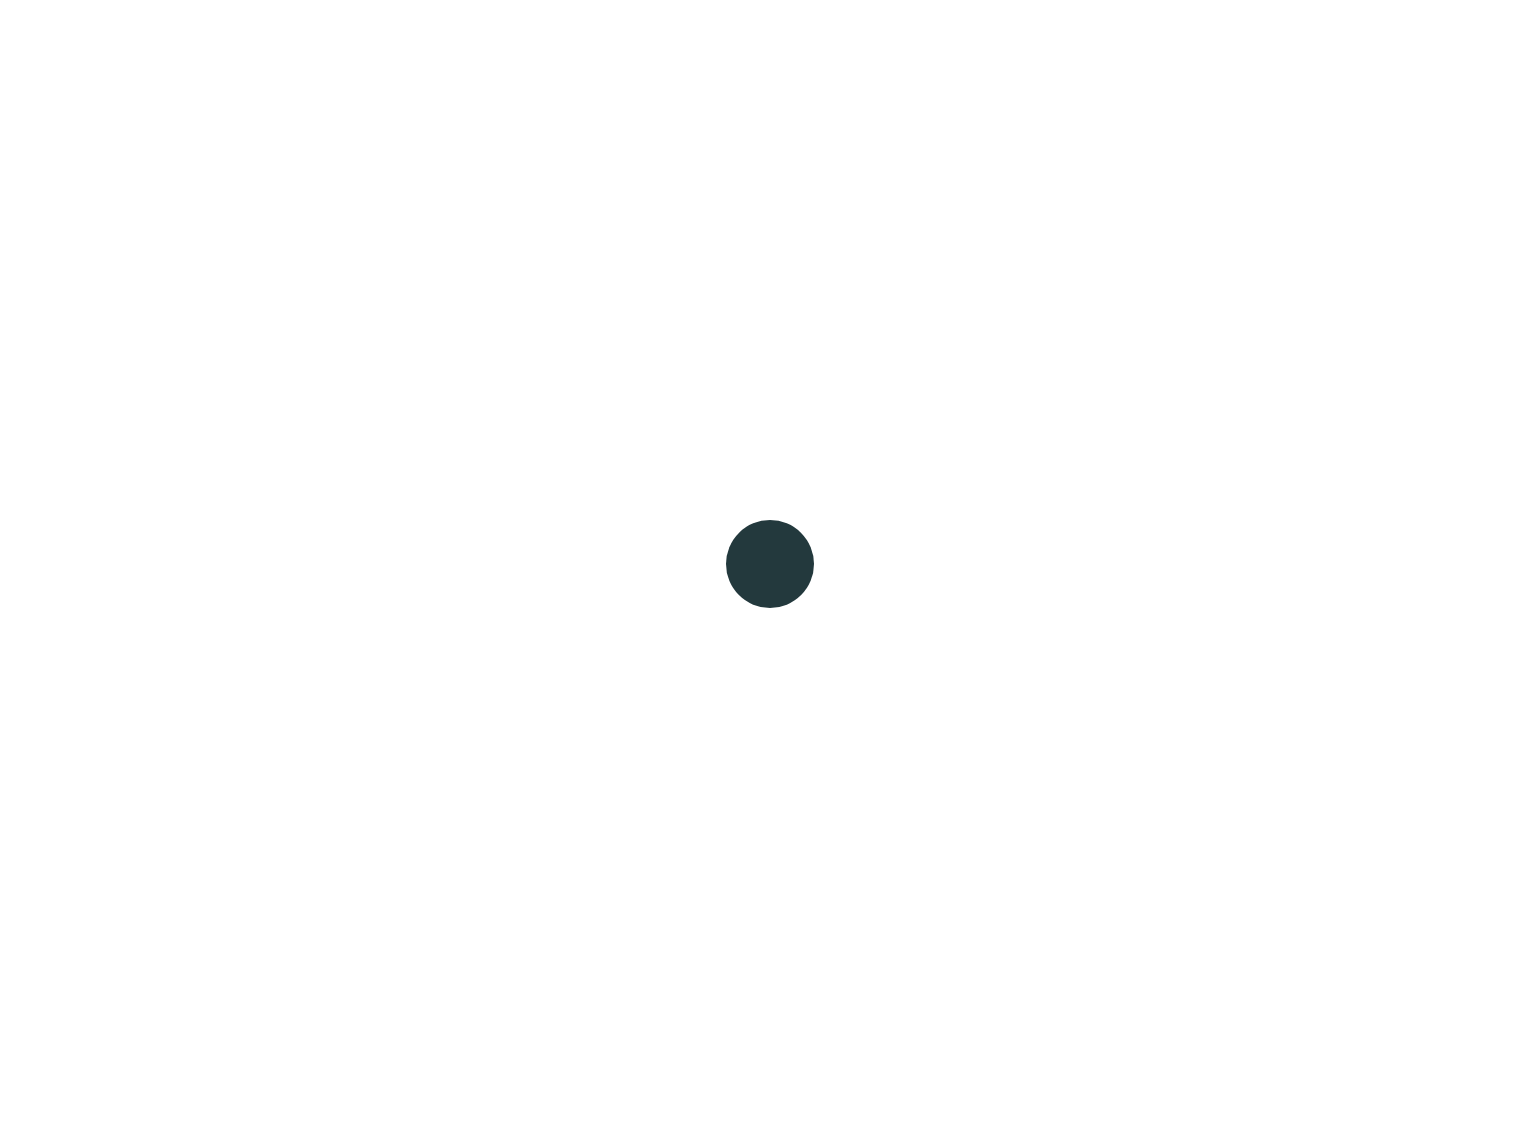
async function draw(canvas) {
  canvas.width = 1536
  canvas.height = 1127
  const ctx = canvas.getContext('2d')
  ctx.miterLimit = 4
  ctx.fontKerning = 'normal'

  ctx.fillStyle = '#fff'
  ctx.fillRect(0, 0, 1536, 1127)
  ctx.fillStyle = '#23393d'
  ctx.beginPath()
  ctx.arc(770, 564, 44, 0, 2 * Math.PI)
  ctx.fill()
}

draw(document.querySelector('canvas'))
